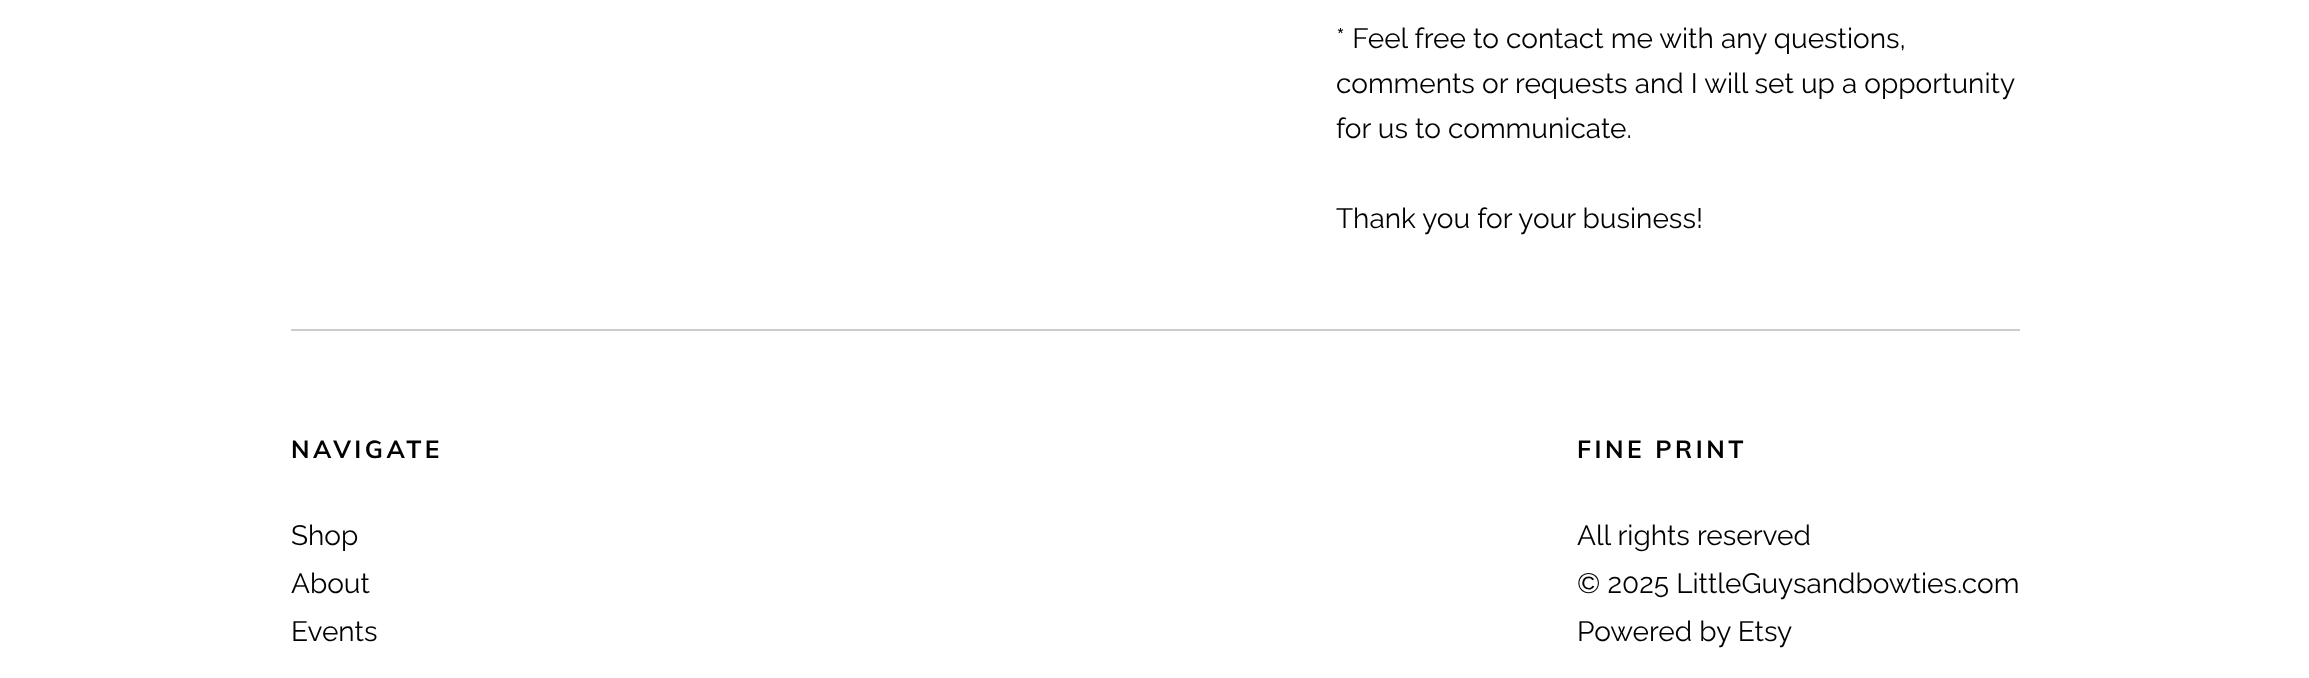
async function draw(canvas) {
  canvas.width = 2309
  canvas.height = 678
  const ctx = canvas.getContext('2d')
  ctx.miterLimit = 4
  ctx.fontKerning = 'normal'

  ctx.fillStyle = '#fff'
  ctx.fillRect(0, 0, 2309, 678)
  ctx.font = '28px Raleway'
  ctx.fillStyle = '#000'
  ctx.fillText('* Feel free to contact me with any questions,', 1336, 48)
  ctx.fillText('comments or requests and I will set up a opportunity', 1336, 93)
  ctx.fillText('for us to communicate.', 1336, 138)
  ctx.fillText('Thank you for your business!', 1336, 228)
  ctx.fillStyle = '#ccc'
  ctx.fillRect(291, 329, 1729, 2)
  ctx.letterSpacing = '3.5px'
  ctx.font = 'bold 24.5px Muli'
  ctx.fillStyle = '#000'
  ctx.fillText('NAVIGATE', 291, 458)
  ctx.letterSpacing = '0px'
  ctx.font = '28px Raleway'
  ctx.fillText('Shop', 291, 545)
  ctx.fillText('About', 291, 593)
  ctx.fillText('Events', 291, 641)
  ctx.letterSpacing = '3.5px'
  ctx.font = 'bold 24.5px Muli'
  ctx.fillText('FINE PRINT', 1577, 458)
  ctx.letterSpacing = '0px'
  ctx.font = '28px Raleway'
  ctx.fillText('All rights reserved', 1577, 545)
  ctx.fillText('© 2025 LittleGuysandbowties.com', 1577, 593)
  ctx.fillText('Powered by Etsy', 1577, 641)
}

draw(document.querySelector('canvas'))
